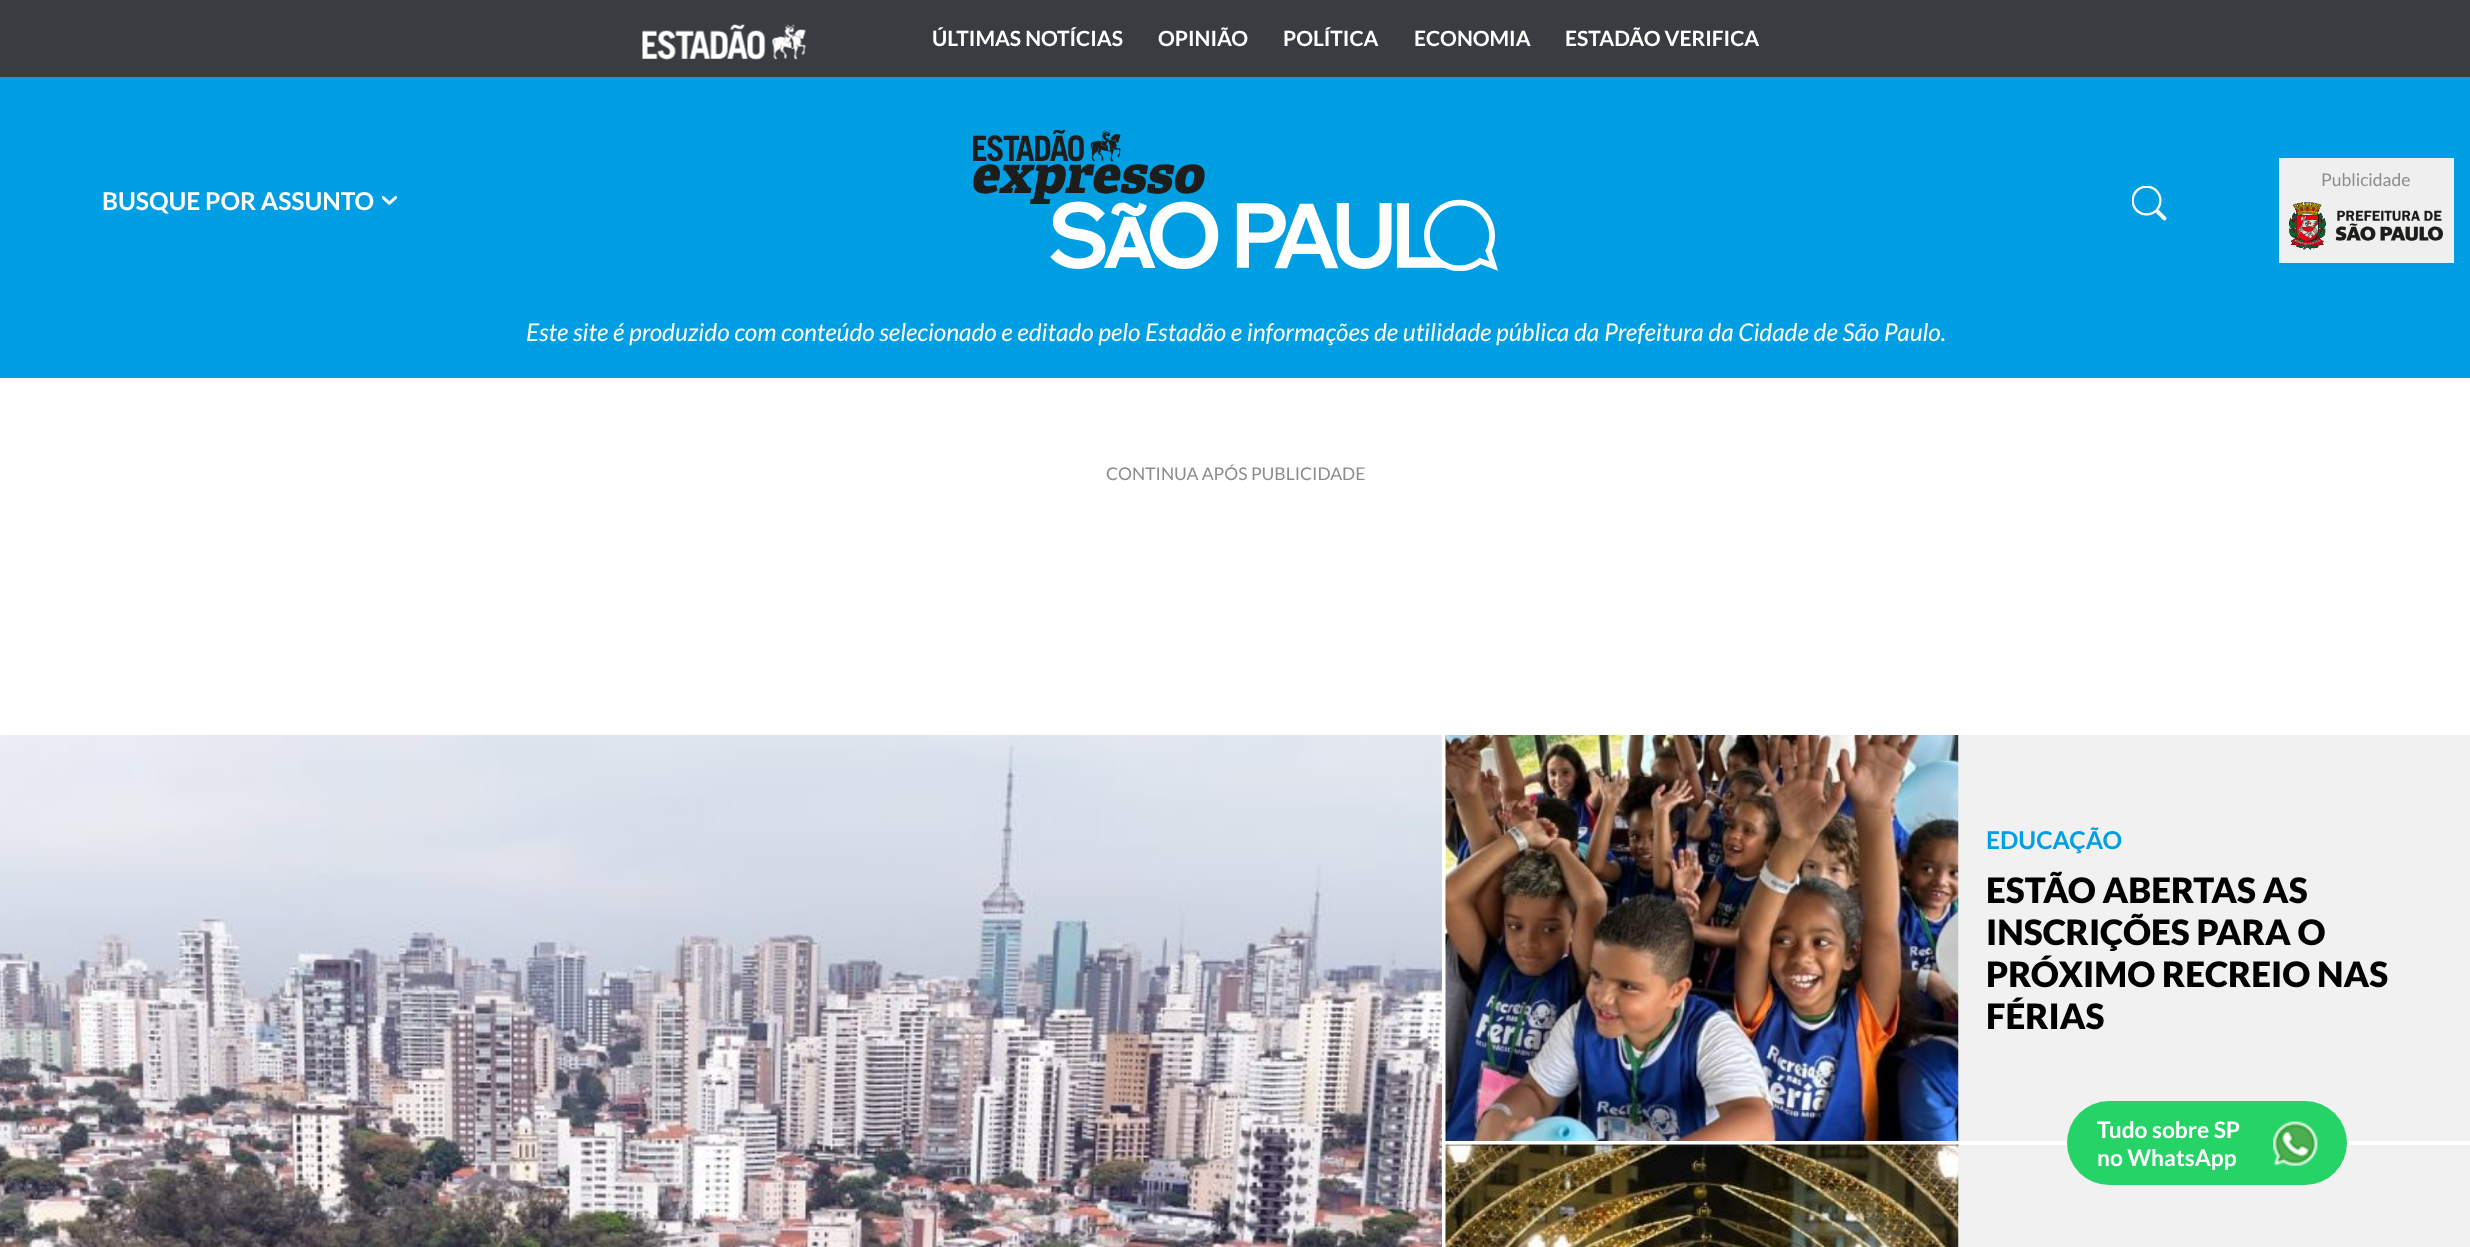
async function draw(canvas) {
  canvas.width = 2470
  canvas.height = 1247
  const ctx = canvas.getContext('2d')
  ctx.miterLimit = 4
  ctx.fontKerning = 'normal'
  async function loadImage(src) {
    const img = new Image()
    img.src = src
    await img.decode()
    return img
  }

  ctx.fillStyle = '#fff'
  ctx.fillRect(0, 0, 2470, 1247)
  ctx.fillStyle = '#393c40'
  ctx.fillRect(0, 0, 2470, 77)
  ctx.drawImage(await loadImage('image0.png'), 642, 24, 164, 36)
  ctx.font = 'bold 21px Lato'
  ctx.fillStyle = '#fff'
  ctx.fillText('ÚLTIMAS NOTÍCIAS', 932, 46)
  ctx.fillText('OPINIÃO', 1158, 46)
  ctx.fillText('POLÍTICA', 1283, 46)
  ctx.fillText('ECONOMIA', 1414, 46)
  ctx.fillText('ESTADÃO VERIFICA', 1565, 46)
  ctx.fillStyle = '#009fe3'
  ctx.fillRect(0, 77, 2470, 301)
  ctx.drawImage(await loadImage('image1.png'), 973, 130, 525, 141)
  ctx.fillStyle = '#efefef'
  ctx.fillRect(2279, 158, 175, 105)
  ctx.font = '17.5px Lato'
  ctx.fillStyle = '#8c8c8c'
  ctx.fillText('Publicidade', 2321, 186)
  ctx.drawImage(await loadImage('image2.png'), 2289, 202, 154, 48)
  ctx.drawImage(await loadImage('image3.png'), 382, 196, 15, 9)
  ctx.font = 'bold 24.5px Lato'
  ctx.fillStyle = '#fff'
  ctx.fillText('BUSQUE POR ASSUNTO', 102, 210)
  ctx.drawImage(await loadImage('image4.png'), 2132, 186, 35, 35)
  ctx.font = 'italic 24.5px Lato'
  ctx.fillText('Este site é produzido com conteúdo selecionado e editado pelo Estadão e informações de utilidade pública da Prefeitura da Cidade de São Paulo.', 526, 341)
  ctx.font = '17.5px Lato'
  ctx.fillStyle = '#8c8c8c'
  ctx.fillText('CONTINUA APÓS PUBLICIDADE', 1106, 480)
  ctx.drawImage(await loadImage('image5.png'), 0, 735, 1442, 512)
  ctx.fillStyle = '#f1f1f1'
  ctx.fillRect(1958, 735, 512, 406)
  ctx.drawImage(await loadImage('image6.png'), 1445, 735, 514, 406)
  ctx.font = 'bold 24.5px Lato'
  ctx.fillStyle = '#009fe3'
  ctx.fillText('EDUCAÇÃO', 1986, 849)
  ctx.font = '900 35px Lato'
  ctx.fillStyle = '#000'
  ctx.fillText('ESTÃO ABERTAS AS', 1986, 903)
  ctx.fillText('INSCRIÇÕES PARA O', 1986, 945)
  ctx.fillText('PRÓXIMO RECREIO NAS', 1986, 987)
  ctx.fillText('FÉRIAS', 1986, 1029)
  ctx.fillStyle = '#f1f1f1'
  ctx.fillRect(1958, 1145, 512, 102)
  ctx.drawImage(await loadImage('image7.png'), 1445, 1144, 514, 103)
  ctx.fillStyle = '#25d366'
  ctx.beginPath()
  ctx.roundRect(2067, 1101, 280, 84, 42)
  ctx.fill()
  ctx.font = 'bold 22.75px Lato'
  ctx.fillStyle = '#fff'
  ctx.fillText('Tudo sobre SP', 2097, 1138)
  ctx.fillText('no WhatsApp', 2097, 1166)
  ctx.drawImage(await loadImage('image8.png'), 2273, 1121, 45, 45)
}

draw(document.querySelector('canvas'))
